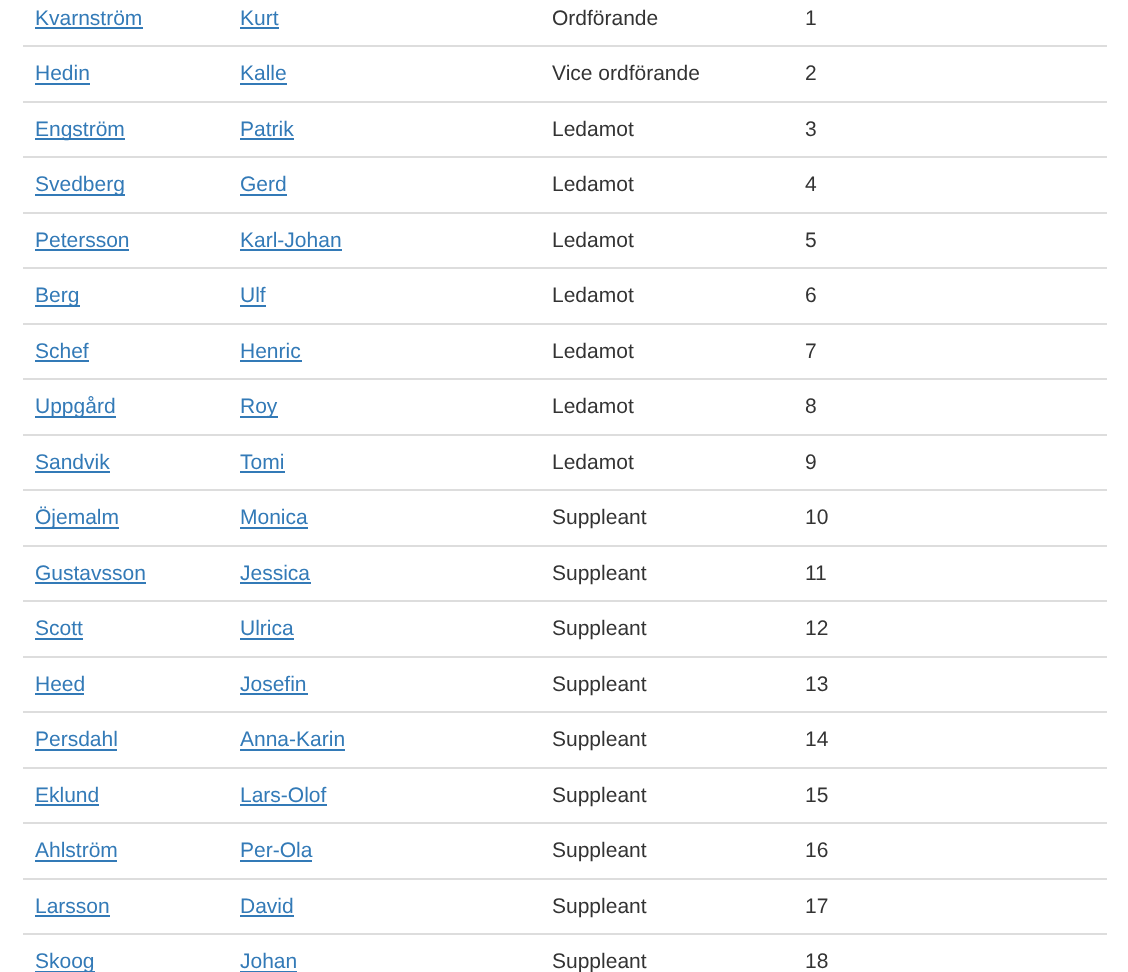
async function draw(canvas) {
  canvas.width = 1128
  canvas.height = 972
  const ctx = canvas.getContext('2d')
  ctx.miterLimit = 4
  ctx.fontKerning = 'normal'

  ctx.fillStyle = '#fff'
  ctx.fillRect(0, 0, 1128, 972)
  ctx.font = '21px Liberation Sans'
  ctx.fillStyle = '#337ab7'
  ctx.fillText('Kvarnström', 35, 25)
  ctx.fillRect(35, 27, 108, 2)
  ctx.fillText('Kurt', 240, 25)
  ctx.fillRect(240, 27, 39, 2)
  ctx.fillStyle = '#333'
  ctx.fillText('Ordförande', 552, 25)
  ctx.fillText('1', 805, 25)
  ctx.fillStyle = '#337ab7'
  ctx.fillText('Hedin', 35, 80)
  ctx.fillRect(35, 83, 55, 2)
  ctx.fillText('Kalle', 240, 80)
  ctx.fillRect(240, 83, 47, 2)
  ctx.fillStyle = '#333'
  ctx.fillText('Vice ordförande', 552, 80)
  ctx.fillStyle = '#ddd'
  ctx.fillRect(23, 45, 1084, 2)
  ctx.fillStyle = '#333'
  ctx.fillText('2', 805, 80)
  ctx.fillStyle = '#337ab7'
  ctx.fillRect(35, 138, 90, 2)
  ctx.fillText('Engström', 35, 136)
  ctx.fillText('Patrik', 240, 136)
  ctx.fillRect(240, 138, 54, 2)
  ctx.fillStyle = '#333'
  ctx.fillText('Ledamot', 552, 136)
  ctx.fillStyle = '#ddd'
  ctx.fillRect(23, 101, 1084, 2)
  ctx.fillStyle = '#333'
  ctx.fillText('3', 805, 136)
  ctx.fillStyle = '#337ab7'
  ctx.fillRect(35, 194, 90, 2)
  ctx.fillText('Svedberg', 35, 191)
  ctx.fillText('Gerd', 240, 191)
  ctx.fillRect(240, 194, 47, 2)
  ctx.fillStyle = '#333'
  ctx.fillText('Ledamot', 552, 191)
  ctx.fillStyle = '#ddd'
  ctx.fillRect(23, 156, 1084, 2)
  ctx.fillStyle = '#333'
  ctx.fillText('4', 805, 191)
  ctx.fillStyle = '#337ab7'
  ctx.fillText('Petersson', 35, 247)
  ctx.fillRect(35, 249, 94, 2)
  ctx.fillText('Karl-Johan', 240, 247)
  ctx.fillRect(240, 249, 102, 2)
  ctx.fillStyle = '#333'
  ctx.fillText('Ledamot', 552, 247)
  ctx.fillStyle = '#ddd'
  ctx.fillRect(23, 212, 1084, 2)
  ctx.fillStyle = '#333'
  ctx.fillText('5', 805, 247)
  ctx.fillStyle = '#337ab7'
  ctx.fillRect(35, 305, 45, 2)
  ctx.fillText('Berg', 35, 302)
  ctx.fillText('Ulf', 240, 302)
  ctx.fillRect(240, 305, 26, 2)
  ctx.fillStyle = '#333'
  ctx.fillText('Ledamot', 552, 302)
  ctx.fillStyle = '#ddd'
  ctx.fillRect(23, 267, 1084, 2)
  ctx.fillStyle = '#333'
  ctx.fillText('6', 805, 302)
  ctx.fillStyle = '#337ab7'
  ctx.fillText('Schef', 35, 358)
  ctx.fillRect(35, 360, 54, 2)
  ctx.fillText('Henric', 240, 358)
  ctx.fillRect(240, 360, 62, 2)
  ctx.fillStyle = '#333'
  ctx.fillText('Ledamot', 552, 358)
  ctx.fillStyle = '#ddd'
  ctx.fillRect(23, 323, 1084, 2)
  ctx.fillStyle = '#333'
  ctx.fillText('7', 805, 358)
  ctx.fillStyle = '#337ab7'
  ctx.fillRect(35, 416, 81, 2)
  ctx.fillText('Uppgård', 35, 413)
  ctx.fillRect(240, 416, 38, 2)
  ctx.fillText('Roy', 240, 413)
  ctx.fillStyle = '#333'
  ctx.fillText('Ledamot', 552, 413)
  ctx.fillStyle = '#ddd'
  ctx.fillRect(23, 378, 1084, 2)
  ctx.fillStyle = '#333'
  ctx.fillText('8', 805, 413)
  ctx.fillStyle = '#337ab7'
  ctx.fillText('Sandvik', 35, 469)
  ctx.fillRect(35, 471, 75, 2)
  ctx.fillText('Tomi', 240, 469)
  ctx.fillRect(240, 471, 45, 2)
  ctx.fillStyle = '#333'
  ctx.fillText('Ledamot', 552, 469)
  ctx.fillStyle = '#ddd'
  ctx.fillRect(23, 434, 1084, 2)
  ctx.fillStyle = '#333'
  ctx.fillText('9', 805, 469)
  ctx.fillStyle = '#337ab7'
  ctx.fillRect(35, 527, 84, 2)
  ctx.fillText('Öjemalm', 35, 524)
  ctx.fillText('Monica', 240, 524)
  ctx.fillRect(240, 527, 68, 2)
  ctx.fillStyle = '#333'
  ctx.fillText('Suppleant', 552, 524)
  ctx.fillStyle = '#ddd'
  ctx.fillRect(23, 489, 1084, 2)
  ctx.fillStyle = '#333'
  ctx.fillText('10', 805, 524)
  ctx.fillStyle = '#337ab7'
  ctx.fillText('Gustavsson', 35, 580)
  ctx.fillRect(35, 582, 111, 2)
  ctx.fillText('Jessica', 240, 580)
  ctx.fillRect(240, 582, 71, 2)
  ctx.fillStyle = '#333'
  ctx.fillText('Suppleant', 552, 580)
  ctx.fillStyle = '#ddd'
  ctx.fillRect(23, 545, 1084, 2)
  ctx.fillStyle = '#333'
  ctx.fillText('11', 805, 580)
  ctx.fillStyle = '#337ab7'
  ctx.fillText('Scott', 35, 635)
  ctx.fillRect(35, 638, 48, 2)
  ctx.fillText('Ulrica', 240, 635)
  ctx.fillRect(240, 638, 54, 2)
  ctx.fillStyle = '#333'
  ctx.fillText('Suppleant', 552, 635)
  ctx.fillStyle = '#ddd'
  ctx.fillRect(23, 600, 1084, 2)
  ctx.fillStyle = '#333'
  ctx.fillText('12', 805, 635)
  ctx.fillStyle = '#337ab7'
  ctx.fillText('Heed', 35, 691)
  ctx.fillRect(35, 693, 49, 2)
  ctx.fillText('Josefin', 240, 691)
  ctx.fillRect(240, 693, 68, 2)
  ctx.fillStyle = '#333'
  ctx.fillText('Suppleant', 552, 691)
  ctx.fillStyle = '#ddd'
  ctx.fillRect(23, 656, 1084, 2)
  ctx.fillStyle = '#333'
  ctx.fillText('13', 805, 691)
  ctx.fillStyle = '#337ab7'
  ctx.fillText('Persdahl', 35, 746)
  ctx.fillRect(35, 749, 82, 2)
  ctx.fillText('Anna-Karin', 240, 746)
  ctx.fillRect(240, 749, 105, 2)
  ctx.fillStyle = '#333'
  ctx.fillText('Suppleant', 552, 746)
  ctx.fillStyle = '#ddd'
  ctx.fillRect(23, 711, 1084, 2)
  ctx.fillStyle = '#333'
  ctx.fillText('14', 805, 746)
  ctx.fillStyle = '#337ab7'
  ctx.fillText('Eklund', 35, 802)
  ctx.fillRect(35, 804, 64, 2)
  ctx.fillText('Lars-Olof', 240, 802)
  ctx.fillRect(240, 804, 87, 2)
  ctx.fillStyle = '#333'
  ctx.fillText('Suppleant', 552, 802)
  ctx.fillStyle = '#ddd'
  ctx.fillRect(23, 767, 1084, 2)
  ctx.fillStyle = '#333'
  ctx.fillText('15', 805, 802)
  ctx.fillStyle = '#337ab7'
  ctx.fillText('Ahlström', 35, 857)
  ctx.fillRect(35, 860, 82, 2)
  ctx.fillText('Per-Ola', 240, 857)
  ctx.fillRect(240, 860, 72, 2)
  ctx.fillStyle = '#333'
  ctx.fillText('Suppleant', 552, 857)
  ctx.fillStyle = '#ddd'
  ctx.fillRect(23, 822, 1084, 2)
  ctx.fillStyle = '#333'
  ctx.fillText('16', 805, 857)
  ctx.fillStyle = '#337ab7'
  ctx.fillText('Larsson', 35, 913)
  ctx.fillRect(35, 915, 75, 2)
  ctx.fillText('David', 240, 913)
  ctx.fillRect(240, 915, 54, 2)
  ctx.fillStyle = '#333'
  ctx.fillText('Suppleant', 552, 913)
  ctx.fillStyle = '#ddd'
  ctx.fillRect(23, 878, 1084, 2)
  ctx.fillStyle = '#333'
  ctx.fillText('17', 805, 913)
  ctx.fillStyle = '#337ab7'
  ctx.fillRect(35, 971, 60, 1)
  ctx.fillText('Skoog', 35, 968)
  ctx.fillText('Johan', 240, 968)
  ctx.fillRect(240, 971, 57, 1)
  ctx.fillStyle = '#333'
  ctx.fillText('Suppleant', 552, 968)
  ctx.fillStyle = '#ddd'
  ctx.fillRect(23, 933, 1084, 2)
  ctx.fillStyle = '#333'
  ctx.fillText('18', 805, 968)
}

draw(document.querySelector('canvas'))
